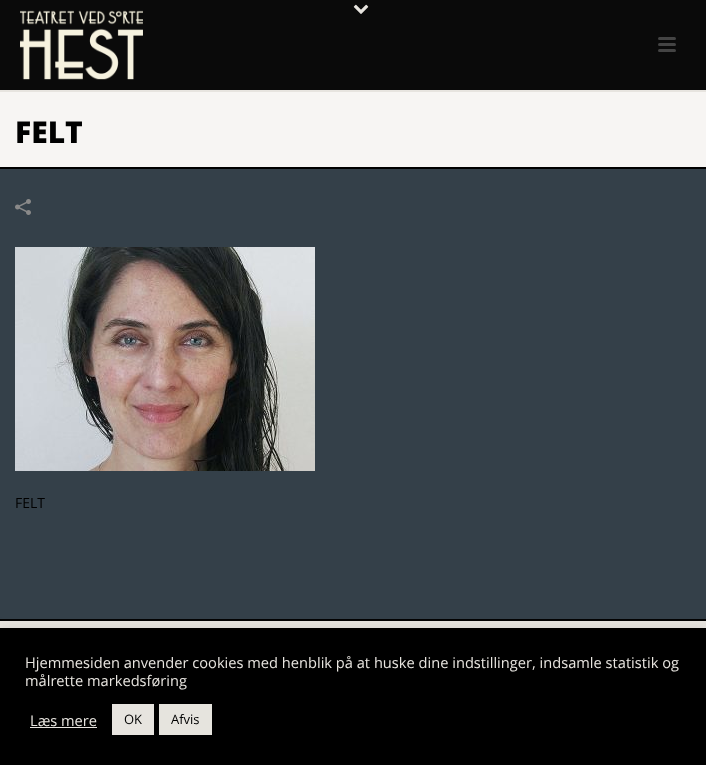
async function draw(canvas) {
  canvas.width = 706
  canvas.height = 765
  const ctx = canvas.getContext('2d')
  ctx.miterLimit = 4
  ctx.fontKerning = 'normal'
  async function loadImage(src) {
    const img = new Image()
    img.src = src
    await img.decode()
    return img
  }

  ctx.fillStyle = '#344049'
  ctx.fillRect(0, 0, 706, 765)
  ctx.fillStyle = '#f7f5f3'
  ctx.fillRect(0, 92, 706, 75)
  ctx.fillStyle = '#000'
  ctx.fillRect(0, 167, 706, 2)
  ctx.fillStyle = '#e7e4df'
  ctx.fillRect(0, 90, 706, 2)
  ctx.fillStyle = '#0a0a0a'
  ctx.fillRect(0, 0, 706, 90)
  ctx.drawImage(await loadImage('image0.png'), 353, 4, 16, 10)
  ctx.drawImage(await loadImage('image1.png'), 20, 10, 123, 70)
  ctx.fillStyle = '#444'
  ctx.beginPath()
  ctx.roundRect(658, 37, 18, 3, 1.5)
  ctx.fill()
  ctx.beginPath()
  ctx.roundRect(658, 43, 18, 3, 1.5)
  ctx.fill()
  ctx.beginPath()
  ctx.roundRect(658, 49, 18, 3, 1.5)
  ctx.fill()
  ctx.font = '800 30px Open Sans'
  ctx.fillStyle = '#000'
  ctx.fillText('FELT', 15, 143)
  ctx.drawImage(await loadImage('image2.png'), 15, 199, 16, 16)
  ctx.drawImage(await loadImage('image3.png'), 15, 247, 300, 224)
  ctx.font = '14px Open Sans'
  ctx.fillText('FELT', 15, 508)
  ctx.fillStyle = '#e7e4df'
  ctx.fillRect(0, 621, 706, 7)
  ctx.fillStyle = '#000'
  ctx.fillRect(0, 619, 706, 2)
  ctx.fillStyle = '#acabab4d'
  ctx.filter = 'blur(5px)'
  ctx.beginPath()
  ctx.rect(0, 627, 706, 137)
  ctx.fill()
  ctx.filter = 'none'
  ctx.fillStyle = '#000'
  ctx.fillRect(0, 628, 706, 137)
  ctx.font = '14.65px Open Sans'
  ctx.fillStyle = '#e7e4df'
  ctx.fillText('Hjemmesiden anvender cookies med henblik på at huske dine indstillinger, indsamle statistik og', 25, 668)
  ctx.fillText('målrette markedsføring', 25, 686)
  ctx.fillText('Læs mere', 30, 726)
  ctx.fillRect(30, 727, 67, 1)
  ctx.fillRect(112, 704, 42, 31)
  ctx.font = '13px Open Sans'
  ctx.fillStyle = '#000'
  ctx.fillText('OK', 124, 724)
  ctx.fillStyle = '#e6e4de'
  ctx.fillRect(159, 704, 53, 31)
  ctx.fillStyle = '#000'
  ctx.fillText('Afvis', 171, 724)
}

draw(document.querySelector('canvas'))
